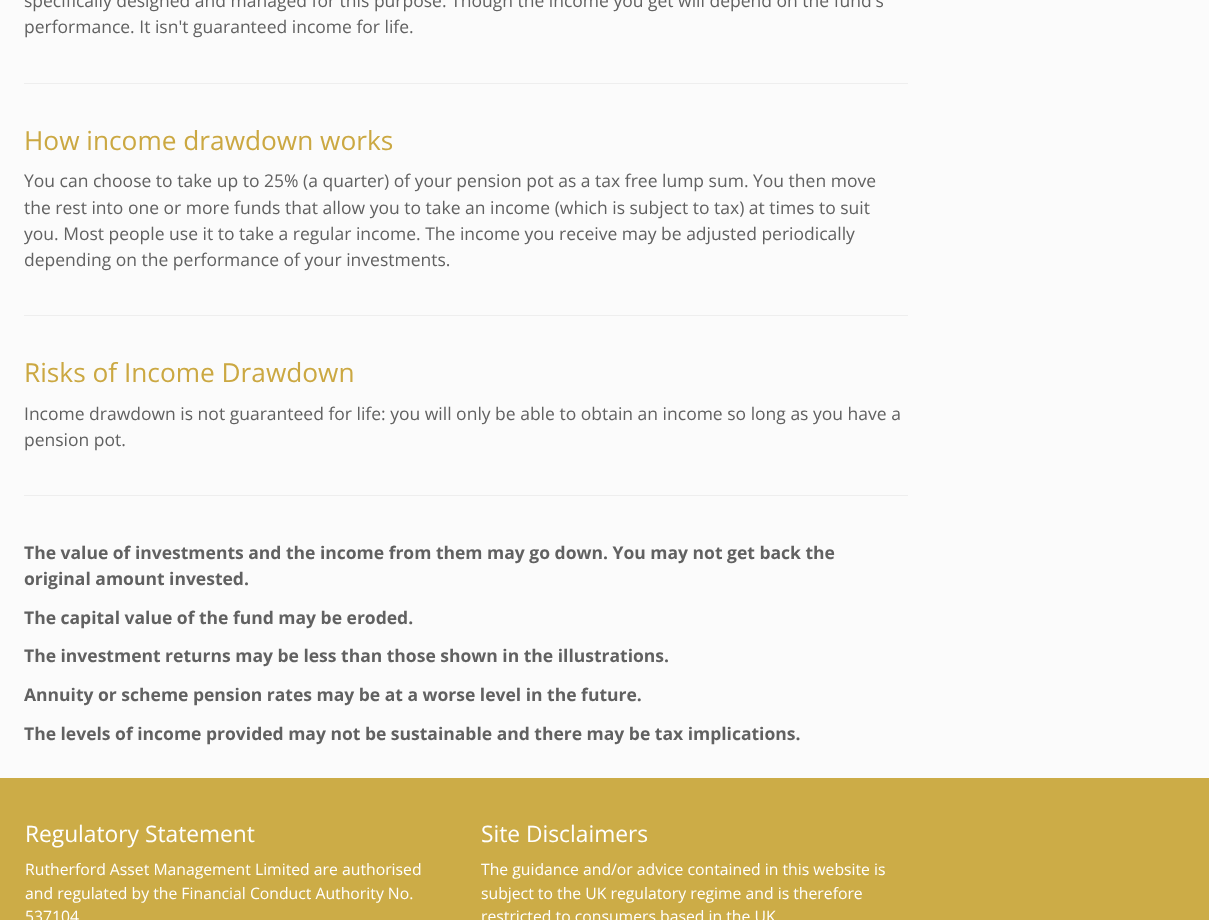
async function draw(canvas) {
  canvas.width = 1209
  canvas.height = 920
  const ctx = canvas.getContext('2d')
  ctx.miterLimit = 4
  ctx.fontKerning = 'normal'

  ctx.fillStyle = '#fbfbfb'
  ctx.fillRect(0, 0, 1209, 920)
  ctx.font = '17.5px Open Sans'
  ctx.fillStyle = '#616161'
  ctx.fillText('specifically designed and managed for this purpose. Though the income you get will depend on the fund\'s', 24, 7)
  ctx.fillText('performance. It isn\'t guaranteed income for life.', 24, 33)
  ctx.fillStyle = '#eee'
  ctx.fillRect(24, 83, 884, 1)
  ctx.font = '26.25px Open Sans'
  ctx.fillStyle = '#cba842'
  ctx.fillText('How income drawdown works', 24, 150)
  ctx.font = '17.5px Open Sans'
  ctx.fillStyle = '#616161'
  ctx.fillText('You can choose to take up to 25% (a quarter) of your pension pot as a tax free lump sum. You then move', 24, 187)
  ctx.fillText('the rest into one or more funds that allow you to take an income (which is subject to tax) at times to suit', 24, 214)
  ctx.fillText('you. Most people use it to take a regular income. The income you receive may be adjusted periodically', 24, 240)
  ctx.fillText('depending on the performance of your investments.', 24, 266)
  ctx.fillStyle = '#eee'
  ctx.fillRect(24, 315, 884, 1)
  ctx.font = '26.25px Open Sans'
  ctx.fillStyle = '#cba842'
  ctx.fillText('Risks of Income Drawdown', 24, 382)
  ctx.font = '17.5px Open Sans'
  ctx.fillStyle = '#616161'
  ctx.fillText('Income drawdown is not guaranteed for life: you will only be able to obtain an income so long as you have a', 24, 420)
  ctx.fillText('pension pot.', 24, 446)
  ctx.fillStyle = '#eee'
  ctx.fillRect(24, 495, 884, 1)
  ctx.font = 'bold 17.5px Open Sans'
  ctx.fillStyle = '#616161'
  ctx.fillText('The value of investments and the income from them may go down. You may not get back the', 24, 559)
  ctx.fillText('original amount invested.', 24, 585)
  ctx.fillText('The capital value of the fund may be eroded.', 24, 624)
  ctx.fillText('The investment returns may be less than those shown in the illustrations.', 24, 662)
  ctx.fillText('Annuity or scheme pension rates may be at a worse level in the future.', 24, 701)
  ctx.fillText('The levels of income provided may not be sustainable and there may be tax implications.', 24, 740)
  ctx.fillStyle = '#ccac47'
  ctx.fillRect(0, 778, 1209, 142)
  ctx.font = '22.75px Open Sans'
  ctx.fillStyle = '#fff'
  ctx.fillText('Regulatory Statement', 25, 842)
  ctx.font = '15.75px Open Sans'
  ctx.fillText('Rutherford Asset Management Limited are authorised', 25, 875)
  ctx.fillText('and regulated by the Financial Conduct Authority No.', 25, 899)
  ctx.fillText('537104', 25, 922)
  ctx.font = '22.75px Open Sans'
  ctx.fillText('Site Disclaimers', 481, 842)
  ctx.font = '15.75px Open Sans'
  ctx.fillText('The guidance and/or advice contained in this website is', 481, 875)
  ctx.fillText('subject to the UK regulatory regime and is therefore', 481, 899)
  ctx.fillText('restricted to consumers based in the UK', 481, 922)
}

draw(document.querySelector('canvas'))
